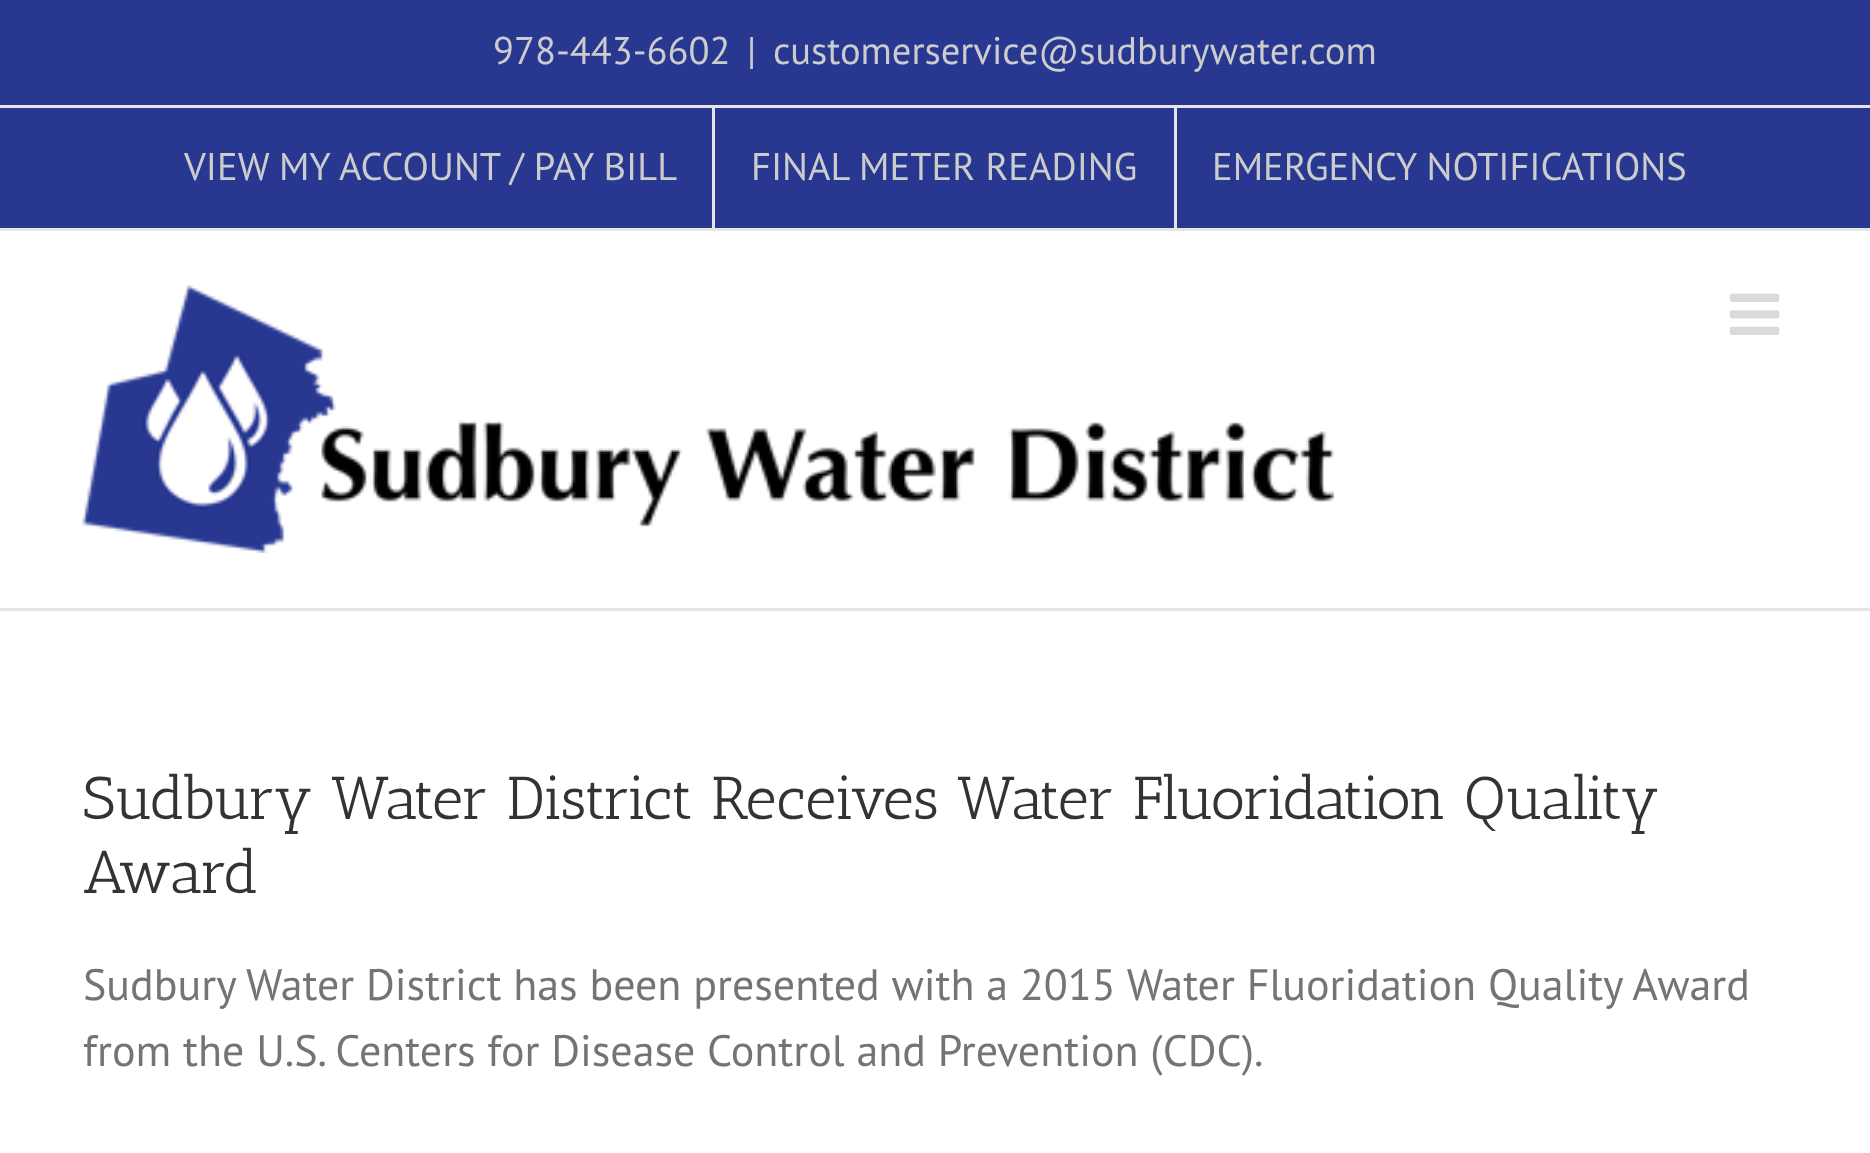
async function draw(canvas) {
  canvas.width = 1870
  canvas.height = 1153
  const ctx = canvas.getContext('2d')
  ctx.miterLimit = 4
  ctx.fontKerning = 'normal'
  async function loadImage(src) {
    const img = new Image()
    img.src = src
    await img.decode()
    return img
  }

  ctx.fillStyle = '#fff'
  ctx.fillRect(0, 0, 1870, 1153)
  ctx.fillStyle = '#283891'
  ctx.fillRect(0, 0, 1870, 228)
  ctx.fillStyle = '#e5e5e5'
  ctx.fillRect(0, 228, 1870, 3)
  ctx.fillRect(0, 105, 1870, 3)
  ctx.font = '38.5px PT Sans'
  ctx.fillStyle = '#ccc'
  ctx.fillText('978-443-6602', 493, 64)
  ctx.fillText('|', 747, 64)
  ctx.fillText('customerservice@sudburywater.com', 773, 64)
  ctx.fillText('VIEW MY ACCOUNT / PAY BILL', 184, 180)
  ctx.fillStyle = '#e5e5e5'
  ctx.fillRect(712, 107, 3, 121)
  ctx.fillStyle = '#ccc'
  ctx.fillText('FINAL METER READING', 751, 180)
  ctx.fillStyle = '#e5e5e5'
  ctx.fillRect(1174, 107, 3, 121)
  ctx.fillStyle = '#ccc'
  ctx.fillText('EMERGENCY NOTIFICATIONS', 1212, 180)
  ctx.fillStyle = '#e5e5e5'
  ctx.fillRect(0, 608, 1870, 3)
  ctx.drawImage(await loadImage('image0.png'), 82, 285, 1252, 268)
  ctx.drawImage(await loadImage('image1.png'), 1729, 293, 51, 42)
  ctx.font = '60.5px Antic Slab'
  ctx.fillStyle = '#333'
  ctx.fillText('Sudbury Water District Receives Water Fluoridation Quality', 83, 819)
  ctx.fillText('Award', 83, 893)
  ctx.font = '44px PT Sans'
  ctx.fillStyle = '#747474'
  ctx.fillText('Sudbury Water District has been presented with a 2015 Water Fluoridation Quality Award', 83, 1000)
  ctx.fillText('from the U.S. Centers for Disease Control and Prevention (CDC).', 83, 1066)
}

draw(document.querySelector('canvas'))
